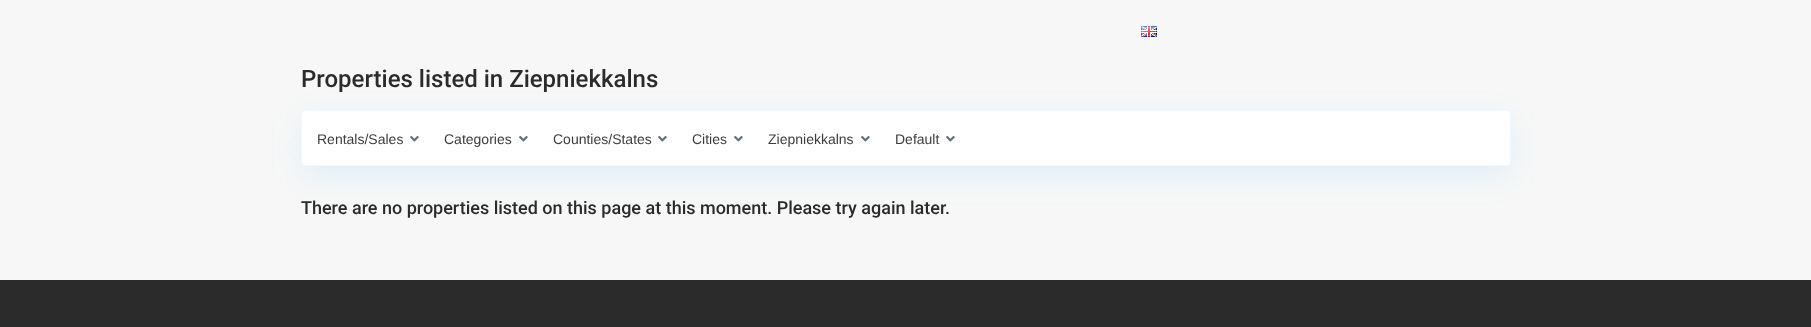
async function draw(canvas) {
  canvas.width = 1811
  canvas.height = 327
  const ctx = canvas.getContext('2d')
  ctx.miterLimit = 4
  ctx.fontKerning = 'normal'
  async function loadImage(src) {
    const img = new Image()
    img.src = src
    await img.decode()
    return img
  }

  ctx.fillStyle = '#f7f7f7'
  ctx.fillRect(0, 0, 1811, 327)
  ctx.drawImage(await loadImage('image0.png'), 1141, 26, 16, 11)
  ctx.font = '500 24px Roboto'
  ctx.fillStyle = '#2b2b2b'
  ctx.fillText('Properties listed in Ziepniekkalns', 301, 87)
  ctx.fillStyle = '#0798ff17'
  ctx.filter = 'blur(15.5px)'
  ctx.beginPath()
  ctx.roundRect(301, 120, 1210, 56, 4)
  ctx.fill()
  ctx.filter = 'none'
  ctx.fillStyle = '#fff'
  ctx.beginPath()
  ctx.roundRect(301.5, 110.5, 1209, 55, 3.5)
  ctx.fill()
  ctx.strokeStyle = '#f1f8ff'
  ctx.stroke()
  ctx.font = '14px Liberation Sans'
  ctx.fillStyle = '#3d3d3d'
  ctx.fillText('Rentals/Sales', 317, 144)
  ctx.drawImage(await loadImage('image1.png'), 410, 136, 9, 6)
  ctx.fillText('Categories', 444, 144)
  ctx.drawImage(await loadImage('image1.png'), 519, 136, 9, 6)
  ctx.fillText('Counties/States', 553, 144)
  ctx.drawImage(await loadImage('image1.png'), 658, 136, 9, 6)
  ctx.fillText('Cities', 692, 144)
  ctx.drawImage(await loadImage('image1.png'), 734, 136, 9, 6)
  ctx.fillText('Ziepniekkalns', 768, 144)
  ctx.drawImage(await loadImage('image1.png'), 861, 136, 9, 6)
  ctx.fillText('Default', 895, 144)
  ctx.drawImage(await loadImage('image1.png'), 946, 136, 9, 6)
  ctx.font = '500 18px Roboto'
  ctx.fillStyle = '#2b2b2b'
  ctx.fillText('There are no properties listed on this page at this moment. Please try again later.', 301, 214)
  ctx.fillRect(0, 280, 1811, 47)
}

draw(document.querySelector('canvas'))
